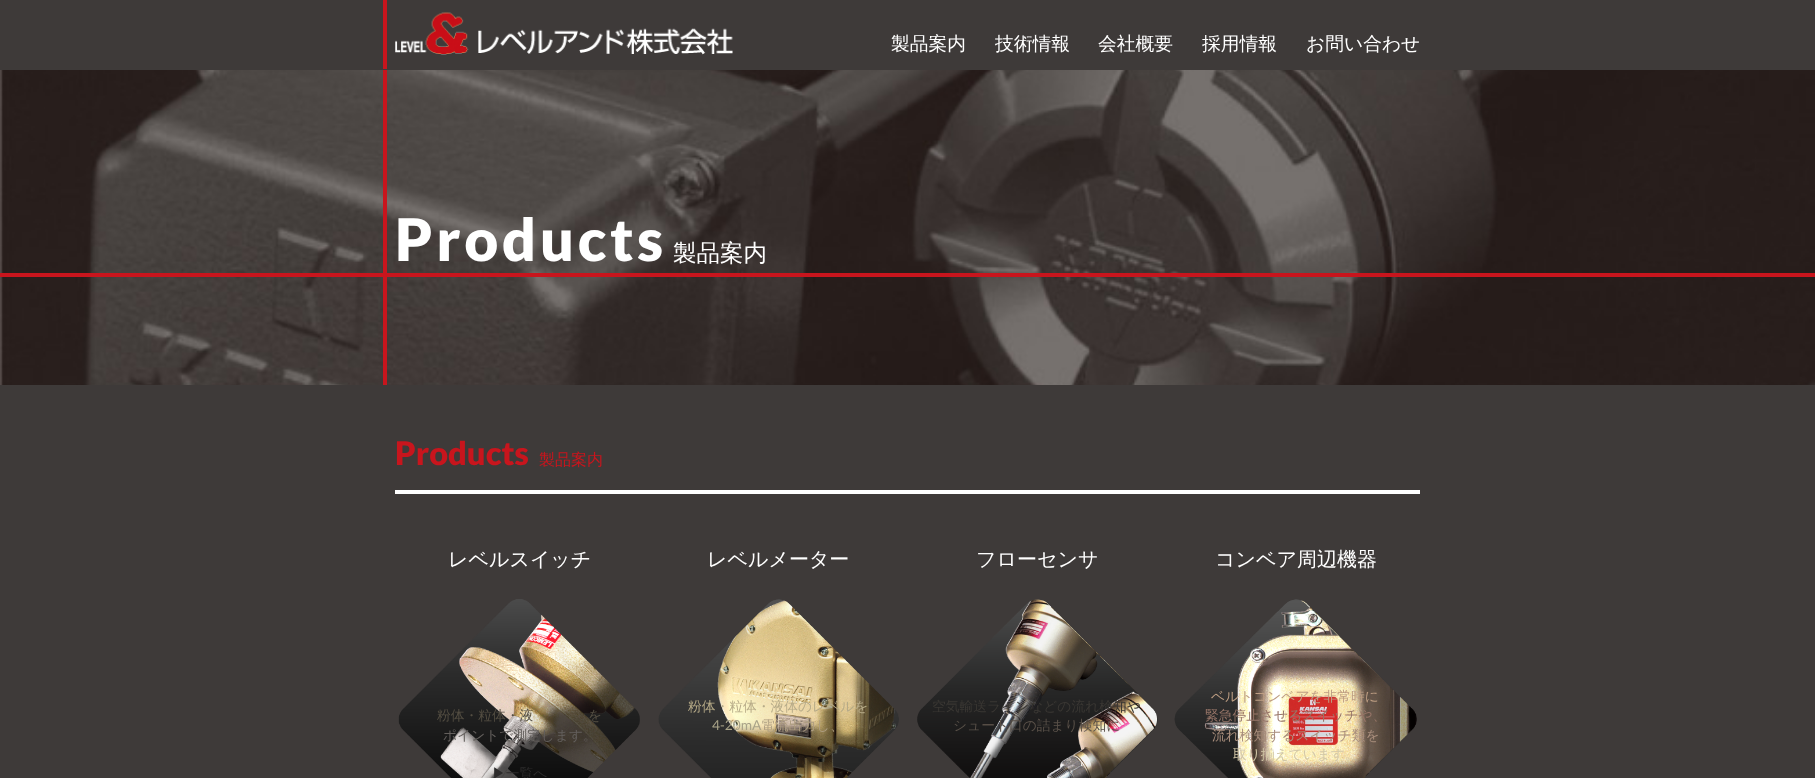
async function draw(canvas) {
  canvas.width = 1815
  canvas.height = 778
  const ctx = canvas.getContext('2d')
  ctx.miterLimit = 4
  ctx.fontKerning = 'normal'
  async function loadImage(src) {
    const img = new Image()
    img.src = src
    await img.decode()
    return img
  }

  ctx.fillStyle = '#3e3a39'
  ctx.fillRect(0, 0, 1815, 778)
  ctx.fillStyle = '#c8151d'
  ctx.fillRect(383, 0, 4, 69)
  ctx.drawImage(await loadImage('image0.png'), 395, 12, 338, 43)
  ctx.font = '500 18.75px WenQuanYi Zen Hei'
  ctx.fillStyle = '#fff'
  ctx.fillText('製品案内', 891, 50)
  ctx.fillText('技術情報', 995, 50)
  ctx.fillText('会社概要', 1098, 50)
  ctx.fillText('採用情報', 1202, 50)
  ctx.fillText('お問い合わせ', 1306, 50)
  ctx.drawImage(await loadImage('image1.png'), 0, 70, 1815, 315)
  ctx.fillStyle = '#c8151d'
  ctx.fillRect(0, 273, 1815, 4)
  ctx.fillRect(383, 70, 4, 315)
  ctx.letterSpacing = '3.75px'
  ctx.font = '900 58.75px Lato'
  ctx.fillStyle = '#fff'
  ctx.fillText('Products', 395, 261)
  ctx.letterSpacing = '0px'
  ctx.font = '500 23.5px WenQuanYi Zen Hei'
  ctx.fillText('製品案内', 673, 261)
  ctx.fillRect(395, 490, 1025, 4)
  ctx.font = '900 32.5px Lato'
  ctx.fillStyle = '#c8151d'
  ctx.fillText('Products', 395, 465)
  ctx.font = '500 16px WenQuanYi Zen Hei'
  ctx.fillText('製品案内', 539, 465)
  ctx.font = '500 20px WenQuanYi Zen Hei'
  ctx.fillStyle = '#fff'
  ctx.fillText('レベルスイッチ', 448, 566)
  ctx.drawImage(await loadImage('image2.png'), 398, 599, 242, 179)
  ctx.font = '500 13.75px WenQuanYi Zen Hei'
  ctx.fillStyle = '#544e42'
  ctx.fillText('粉体・粒体・液', 437, 720)
  ctx.fillText('を', 588, 720)
  ctx.fillStyle = '#635f5c'
  ctx.fillText('ポイントで測定します。', 443, 740)
  ctx.fillStyle = '#2c2b2b'
  ctx.fillText('▶︎一覧へ', 492, 778)
  ctx.font = '500 20px WenQuanYi Zen Hei'
  ctx.fillStyle = '#fff'
  ctx.fillText('レベルメーター', 707, 566)
  ctx.drawImage(await loadImage('image3.png'), 658, 599, 241, 179)
  ctx.font = '500 13.75px WenQuanYi Zen Hei'
  ctx.fillStyle = '#b7ab88'
  ctx.fillText('粉体・粒体・液体のレベルを', 688, 711)
  ctx.font = '13.75px Lato'
  ctx.fillStyle = '#a9a388'
  ctx.fillText('4-20mA', 712, 730)
  ctx.font = '500 13.75px WenQuanYi Zen Hei'
  ctx.fillStyle = '#ad9d80'
  ctx.fillText('電流出力し、', 761, 730)
  ctx.font = '500 20px WenQuanYi Zen Hei'
  ctx.fillStyle = '#fff'
  ctx.fillText('フローセンサ', 976, 566)
  ctx.drawImage(await loadImage('image4.png'), 917, 599, 241, 179)
  ctx.font = '500 13.75px WenQuanYi Zen Hei'
  ctx.fillStyle = '#3a3733'
  ctx.fillText('空気輸送ラインなどの流れ検知や', 932, 711)
  ctx.fillStyle = '#595048'
  ctx.fillText('シュート口の詰まり検知に', 953, 730)
  ctx.font = '500 20px WenQuanYi Zen Hei'
  ctx.fillStyle = '#fff'
  ctx.fillText('コンベア周辺機器', 1215, 566)
  ctx.drawImage(await loadImage('image5.png'), 1174, 599, 243, 179)
  ctx.font = '500 13.75px WenQuanYi Zen Hei'
  ctx.fillStyle = '#be9e83'
  ctx.fillText('ベルトコンベアを非常時に', 1211, 701)
  ctx.fillStyle = '#977568'
  ctx.fillText('緊急停止させるスイッチや、', 1205, 720)
  ctx.fillStyle = '#a88d7b'
  ctx.fillText('流れ検知するスイッチ類を', 1212, 740)
  ctx.fillStyle = '#d2c7a7'
  ctx.fillText('取り揃えています。', 1233, 759)
}

draw(document.querySelector('canvas'))
